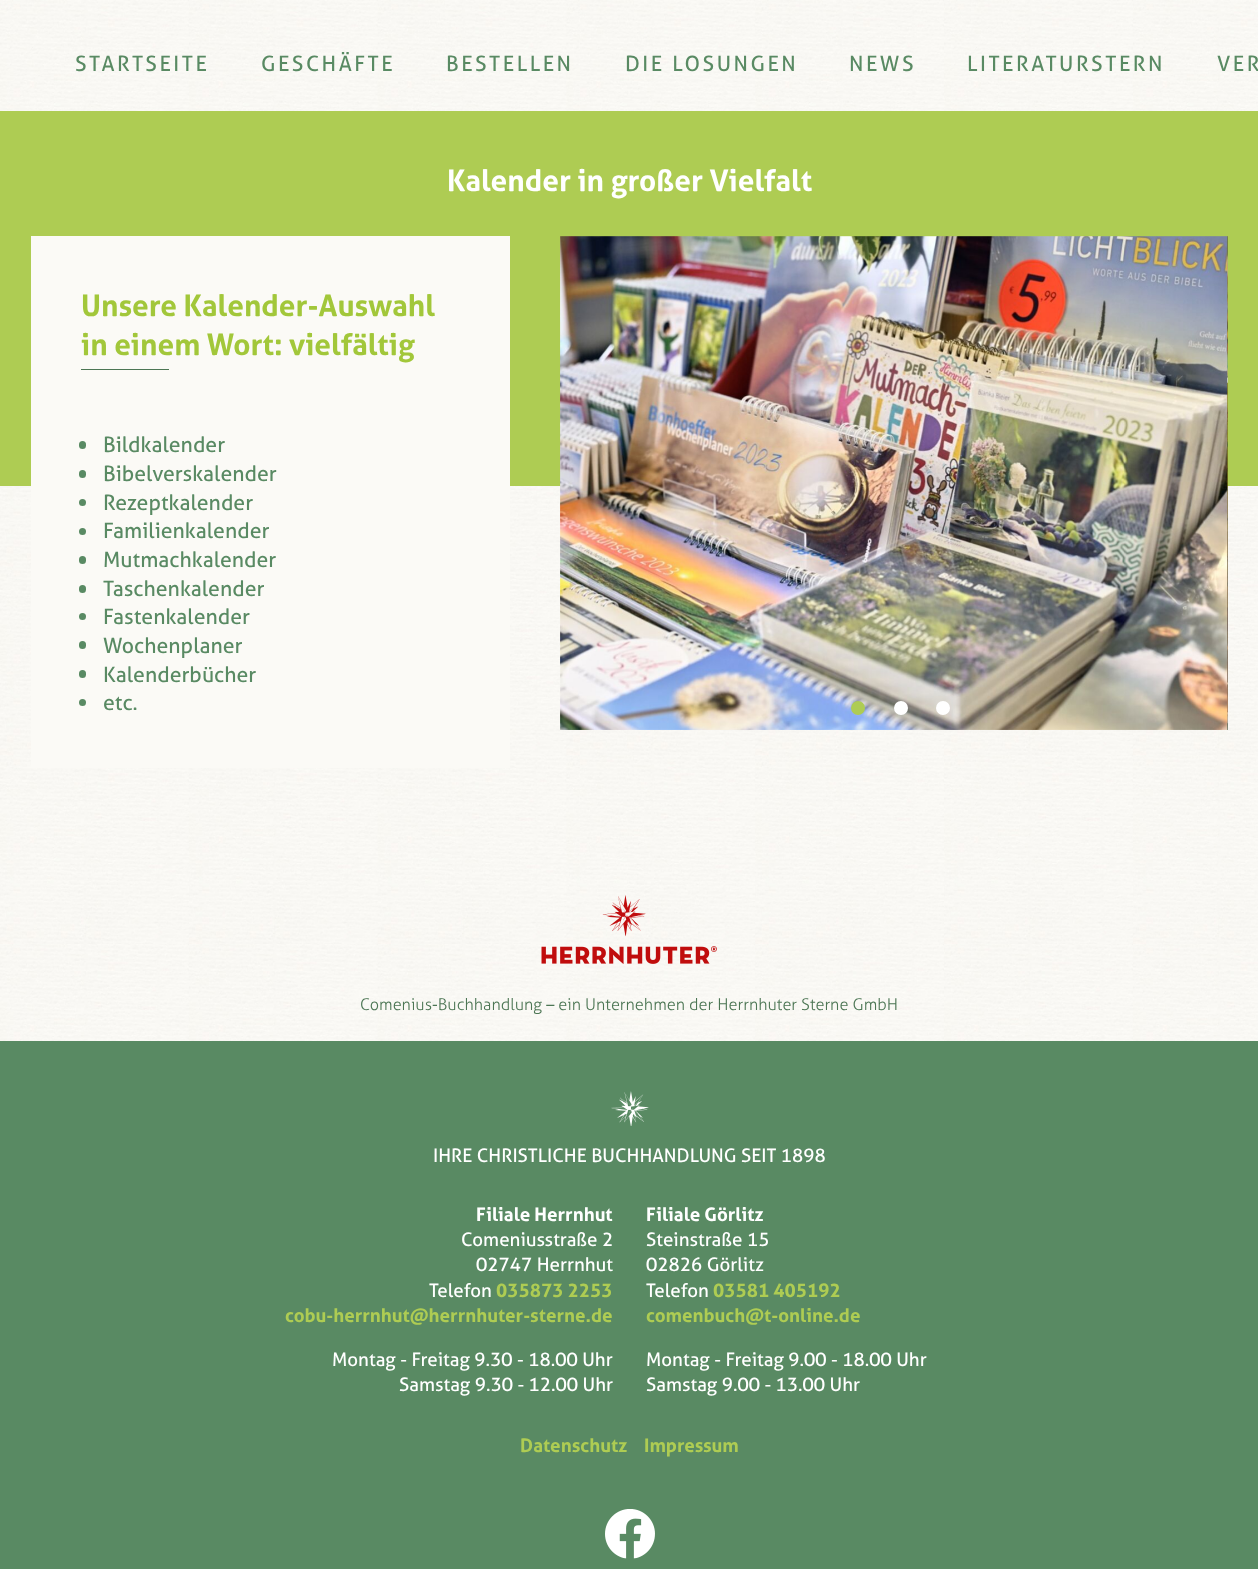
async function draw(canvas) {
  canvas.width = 1258
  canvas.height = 1569
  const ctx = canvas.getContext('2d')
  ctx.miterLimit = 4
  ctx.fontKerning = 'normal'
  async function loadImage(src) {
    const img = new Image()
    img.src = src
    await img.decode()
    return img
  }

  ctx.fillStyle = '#fff'
  ctx.fillRect(0, 0, 1258, 1569)
  ctx.drawImage(await loadImage('image0.png'), 0, 0, 1258, 1041)
  ctx.letterSpacing = '2.5px'
  ctx.font = '21.25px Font'
  ctx.fillStyle = '#598a63'
  ctx.fillText('STARTSEITE', 75, 71)
  ctx.fillText('GESCHÄFTE', 261, 71)
  ctx.fillText('BESTELLEN', 446, 71)
  ctx.fillText('DIE LOSUNGEN', 625, 71)
  ctx.fillText('NEWS', 849, 71)
  ctx.fillText('LITERATURSTERN', 967, 71)
  ctx.fillText('VER', 1217, 71)
  ctx.fillStyle = '#aecc53'
  ctx.fillRect(0, 111, 1258, 375)
  ctx.letterSpacing = '0px'
  ctx.font = 'bold 29.75px Font'
  ctx.fillStyle = '#fff'
  ctx.fillText('Kalender in großer Vielfalt', 447, 191)
  ctx.fillStyle = '#fbfaf6'
  ctx.fillRect(31, 236, 479, 532)
  ctx.fillStyle = '#a2c73a'
  ctx.fillText('Unsere Kalender-Auswahl', 81, 316)
  ctx.fillText('in einem Wort: vielfältig', 81, 355)
  ctx.fillStyle = '#4c7654'
  ctx.fillRect(81, 369, 88, 1)
  ctx.fillStyle = '#598a63'
  ctx.beginPath()
  ctx.roundRect(79, 441, 7, 8, 3.5)
  ctx.fill()
  ctx.font = '21.25px Font'
  ctx.fillText('Bildkalender', 103, 452)
  ctx.beginPath()
  ctx.roundRect(79, 470, 7, 8, 3.5)
  ctx.fill()
  ctx.fillText('Bibelverskalender', 103, 481)
  ctx.beginPath()
  ctx.arc(82.5, 502.5, 3.5, 0, 2 * Math.PI)
  ctx.fill()
  ctx.fillText('Rezeptkalender', 103, 510)
  ctx.beginPath()
  ctx.arc(82.5, 531.5, 3.5, 0, 2 * Math.PI)
  ctx.fill()
  ctx.fillText('Familienkalender', 103, 538)
  ctx.beginPath()
  ctx.roundRect(79, 556, 7, 8, 3.5)
  ctx.fill()
  ctx.fillText('Mutmachkalender', 103, 567)
  ctx.beginPath()
  ctx.roundRect(79, 585, 7, 8, 3.5)
  ctx.fill()
  ctx.fillText('Taschenkalender', 103, 596)
  ctx.beginPath()
  ctx.arc(82.5, 616.5, 3.5, 0, 2 * Math.PI)
  ctx.fill()
  ctx.fillText('Fastenkalender', 103, 624)
  ctx.beginPath()
  ctx.roundRect(79, 641, 7, 8, 3.5)
  ctx.fill()
  ctx.fillText('Wochenplaner', 103, 653)
  ctx.beginPath()
  ctx.roundRect(79, 670, 7, 8, 3.5)
  ctx.fill()
  ctx.fillText('Kalenderbücher', 103, 682)
  ctx.beginPath()
  ctx.arc(82.5, 702.5, 3.5, 0, 2 * Math.PI)
  ctx.fill()
  ctx.fillText('etc.', 103, 710)
  ctx.drawImage(await loadImage('image1.png'), 560, 236, 668, 494)
  ctx.drawImage(await loadImage('image2.png'), 1227, 236, 1, 494)
  ctx.fillStyle = '#aecc53'
  ctx.beginPath()
  ctx.arc(858, 708, 7, 0, 2 * Math.PI)
  ctx.fill()
  ctx.fillStyle = '#fff'
  ctx.beginPath()
  ctx.arc(901, 708, 7, 0, 2 * Math.PI)
  ctx.fill()
  ctx.beginPath()
  ctx.arc(943, 708, 7, 0, 2 * Math.PI)
  ctx.fill()
  ctx.drawImage(await loadImage('image3.png'), 541, 895, 176, 69)
  ctx.font = '300 16.25px Font'
  ctx.fillStyle = '#4c7654'
  ctx.fillText('Comenius-Buchhandlung – ein Unternehmen der Herrnhuter Sterne GmbH', 360, 1010)
  ctx.fillStyle = '#598a63'
  ctx.fillRect(0, 1041, 1258, 528)
  ctx.drawImage(await loadImage('image4.png'), 611, 1091, 38, 35)
  ctx.font = '18.75px Font'
  ctx.fillStyle = '#fff'
  ctx.fillText('IHRE CHRISTLICHE BUCHHANDLUNG SEIT 1898', 433, 1162)
  ctx.font = 'bold 18.75px Font'
  ctx.fillText('Filiale Herrnhut', 476, 1221)
  ctx.font = '18.75px Font'
  ctx.fillText('Comeniusstraße 2', 461, 1246)
  ctx.fillText('02747 Herrnhut', 476, 1271)
  ctx.fillText('Telefon', 429, 1297)
  ctx.font = 'bold 18.75px Font'
  ctx.fillStyle = '#aecc53'
  ctx.fillText('035873 2253', 496, 1297)
  ctx.fillText('cobu-herrnhut@herrnhuter-sterne.de', 285, 1322)
  ctx.fillStyle = '#fff'
  ctx.fillText('Filiale Görlitz', 646, 1221)
  ctx.font = '18.75px Font'
  ctx.fillText('Steinstraße 15', 646, 1246)
  ctx.fillText('02826 Görlitz', 646, 1271)
  ctx.fillText('Telefon', 646, 1297)
  ctx.font = 'bold 18.75px Font'
  ctx.fillStyle = '#aecc53'
  ctx.fillText('03581 405192', 713, 1297)
  ctx.fillText('comenbuch@t-online.de', 646, 1322)
  ctx.font = '18.75px Font'
  ctx.fillStyle = '#fff'
  ctx.fillText('Montag - Freitag 9.30 - 18.00 Uhr', 332, 1366)
  ctx.fillText('Samstag 9.30 - 12.00 Uhr', 399, 1391)
  ctx.fillText('Montag - Freitag 9.00 - 18.00 Uhr', 646, 1366)
  ctx.fillText('Samstag 9.00 - 13.00 Uhr', 646, 1391)
  ctx.font = 'bold 18.75px Font'
  ctx.fillStyle = '#aecc53'
  ctx.fillText('Datenschutz', 520, 1452)
  ctx.fillText('Impressum', 644, 1452)
  ctx.drawImage(await loadImage('image5.png'), 605, 1509, 50, 50)
}

draw(document.querySelector('canvas'))
